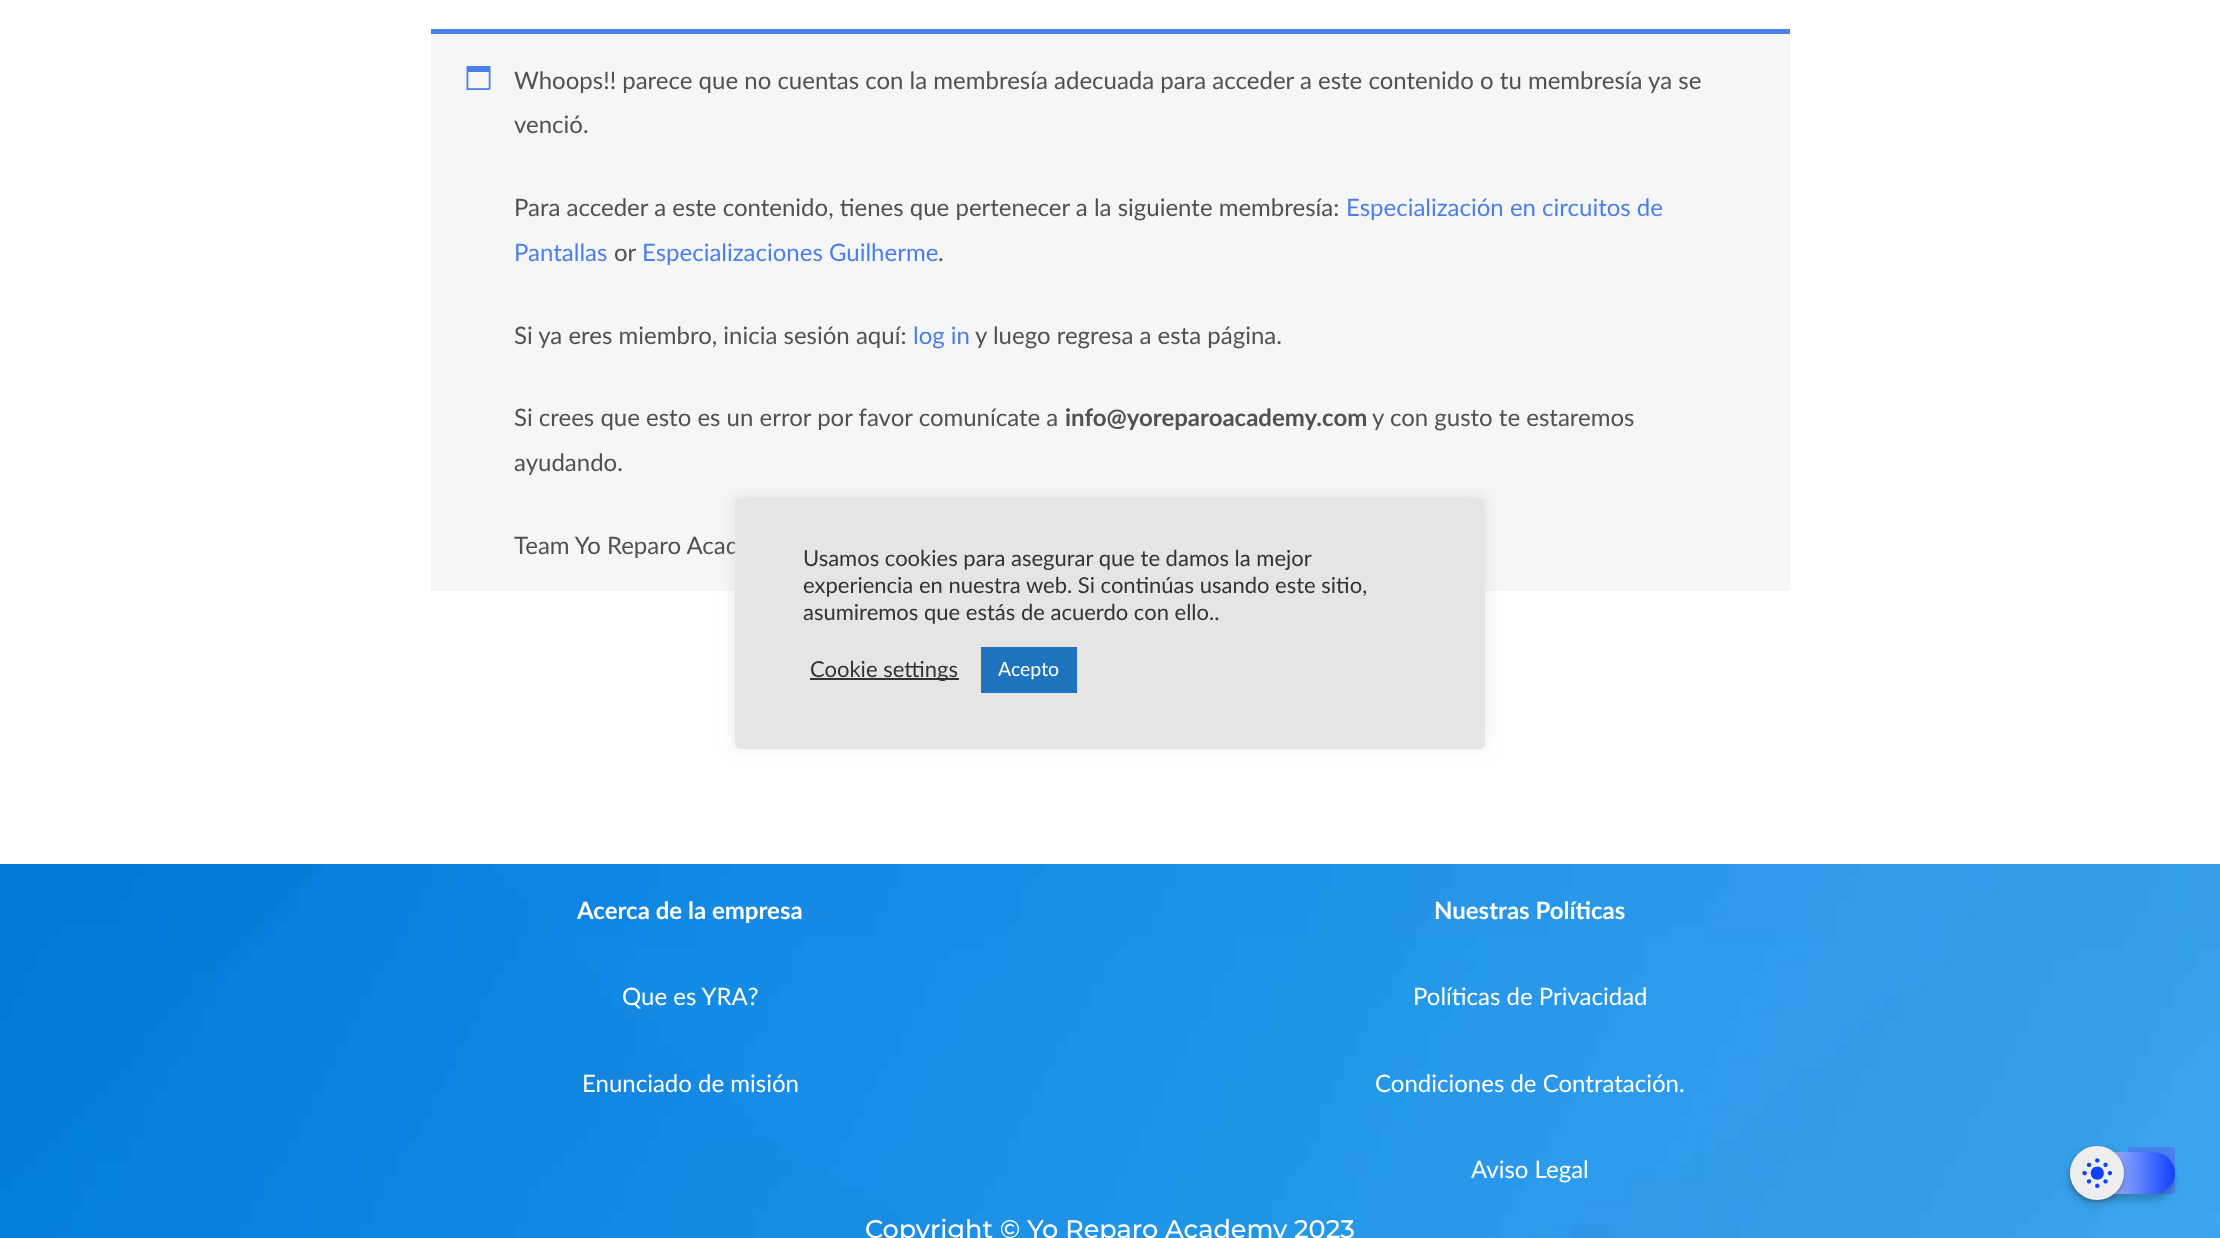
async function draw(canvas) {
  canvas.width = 2220
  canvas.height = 1238
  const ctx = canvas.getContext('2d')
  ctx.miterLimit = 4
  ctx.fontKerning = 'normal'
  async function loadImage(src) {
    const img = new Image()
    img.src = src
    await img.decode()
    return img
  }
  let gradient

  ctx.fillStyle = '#fff'
  ctx.fillRect(0, 0, 2220, 1238)
  ctx.fillStyle = '#f7f6f7'
  ctx.fillRect(431, 34, 1359, 557)
  ctx.fillStyle = '#4a80ec'
  ctx.fillRect(431, 29, 1359, 5)
  ctx.drawImage(await loadImage('image0.png'), 466, 66, 25, 24)
  ctx.font = '24px Lato'
  ctx.fillStyle = '#515151'
  ctx.fillText('Whoops!! parece que no cuentas con la membresía adecuada para acceder a este contenido o tu membresía ya se', 514, 89)
  ctx.fillText('venció.', 514, 133)
  ctx.fillText('Para acceder a este contenido, tienes que pertenecer a la siguiente membresía:', 514, 216)
  ctx.fillStyle = '#4a80ec'
  ctx.fillText('Especialización en circuitos de', 1346, 216)
  ctx.fillText('Pantallas', 514, 261)
  ctx.fillStyle = '#515151'
  ctx.fillText('or', 614, 261)
  ctx.fillStyle = '#4a80ec'
  ctx.fillText('Especializaciones Guilherme', 642, 261)
  ctx.fillStyle = '#515151'
  ctx.fillText('.', 938, 261)
  ctx.fillText('Si ya eres miembro, inicia sesión aquí:', 514, 344)
  ctx.fillStyle = '#4a80ec'
  ctx.fillText('log in', 913, 344)
  ctx.fillStyle = '#515151'
  ctx.fillText('y luego regresa a esta página.', 975, 344)
  ctx.fillText('Si crees que esto es un error por favor comunícate a', 514, 426)
  ctx.font = 'bold 24px Lato'
  ctx.fillText('info@yoreparoacademy.com', 1065, 426)
  ctx.font = '24px Lato'
  ctx.fillText('y con gusto te estaremos', 1372, 426)
  ctx.fillText('ayudando.', 514, 471)
  ctx.fillText('Team Yo Reparo Acad', 514, 554)
  ctx.drawImage(await loadImage('image1.png'), 0, 864, 2220, 374)
  ctx.font = 'bold 24px Lato'
  ctx.fillStyle = '#fff'
  ctx.fillText('Acerca de la empresa', 577, 919)
  ctx.font = '24px Lato'
  ctx.fillText('Que es YRA?', 622, 1005)
  ctx.fillText('Enunciado de misión', 582, 1092)
  ctx.font = 'bold 24px Lato'
  ctx.fillText('Nuestras Políticas', 1434, 919)
  ctx.font = '24px Lato'
  ctx.fillText('Políticas de Privacidad', 1413, 1005)
  ctx.fillText('Condiciones de Contratación.', 1375, 1092)
  ctx.fillText('Aviso Legal', 1471, 1178)
  ctx.font = '500 25.5px Montserrat'
  ctx.fillText('Copyright © Yo Reparo Academy 2023', 865, 1238)
  ctx.fillStyle = '#acabab4d'
  ctx.filter = 'blur(7.5px)'
  ctx.beginPath()
  ctx.roundRect(735, 497, 750, 250, 5)
  ctx.fill()
  ctx.filter = 'none'
  ctx.fillStyle = '#e5e5e5'
  ctx.beginPath()
  ctx.roundRect(735, 498, 750, 251, 5)
  ctx.fill()
  ctx.font = '22px Lato'
  ctx.fillStyle = '#333'
  ctx.fillText('Usamos cookies para asegurar que te damos la mejor', 803, 566)
  ctx.fillText('experiencia en nuestra web. Si continúas usando este sitio,', 803, 593)
  ctx.fillText('asumiremos que estás de acuerdo con ello..', 803, 620)
  ctx.fillRect(810, 678, 149, 2)
  ctx.fillText('Cookie settings', 810, 677)
  ctx.fillStyle = '#1e73be'
  ctx.fillRect(981, 647, 96, 46)
  ctx.font = '19.5px Lato'
  ctx.fillStyle = '#fff'
  ctx.fillText('Acepto', 998, 676)
  ctx.fillStyle = '#4a80ec'
  ctx.beginPath()
  ctx.moveTo(2172, 1194)
  ctx.lineTo(2131, 1194)
  ctx.bezierCurveTo(2129, 1194, 2128, 1193, 2128, 1191)
  ctx.lineTo(2128, 1150)
  ctx.bezierCurveTo(2128, 1148, 2129, 1147, 2131, 1147)
  ctx.lineTo(2172, 1147)
  ctx.bezierCurveTo(2174, 1147, 2175, 1148, 2175, 1150)
  ctx.lineTo(2175, 1191)
  ctx.bezierCurveTo(2175, 1193, 2174, 1194, 2172, 1194)
  ctx.closePath()
  ctx.fill()
  ctx.fillStyle = '#00000033'
  ctx.filter = 'blur(3px)'
  ctx.beginPath()
  ctx.roundRect(2070, 1158, 105, 42, 21)
  ctx.fill()
  ctx.filter = 'none'
  gradient = ctx.createLinearGradient(2070, 1173, 2175, 1173)
  gradient.addColorStop(0, '#fff')
  gradient.addColorStop(1, '#0f40ff')
  ctx.fillStyle = gradient
  ctx.beginPath()
  ctx.roundRect(2070, 1152, 105, 42, 21)
  ctx.fill()
  ctx.fillStyle = '#3c404326'
  ctx.filter = 'blur(4.5px)'
  ctx.beginPath()
  ctx.roundRect(2067, 1146, 60, 60, 30)
  ctx.fill()
  ctx.filter = 'none'
  ctx.fillStyle = '#3c40434d'
  ctx.filter = 'blur(1.5px)'
  ctx.beginPath()
  ctx.roundRect(2070, 1148, 54, 54, 27)
  ctx.fill()
  ctx.filter = 'none'
  ctx.fillStyle = '#eee'
  ctx.beginPath()
  ctx.arc(2097, 1173, 27, 0, 2 * Math.PI)
  ctx.fill()
  ctx.drawImage(await loadImage('image2.png'), 2082, 1158, 30, 30)
}

draw(document.querySelector('canvas'))
